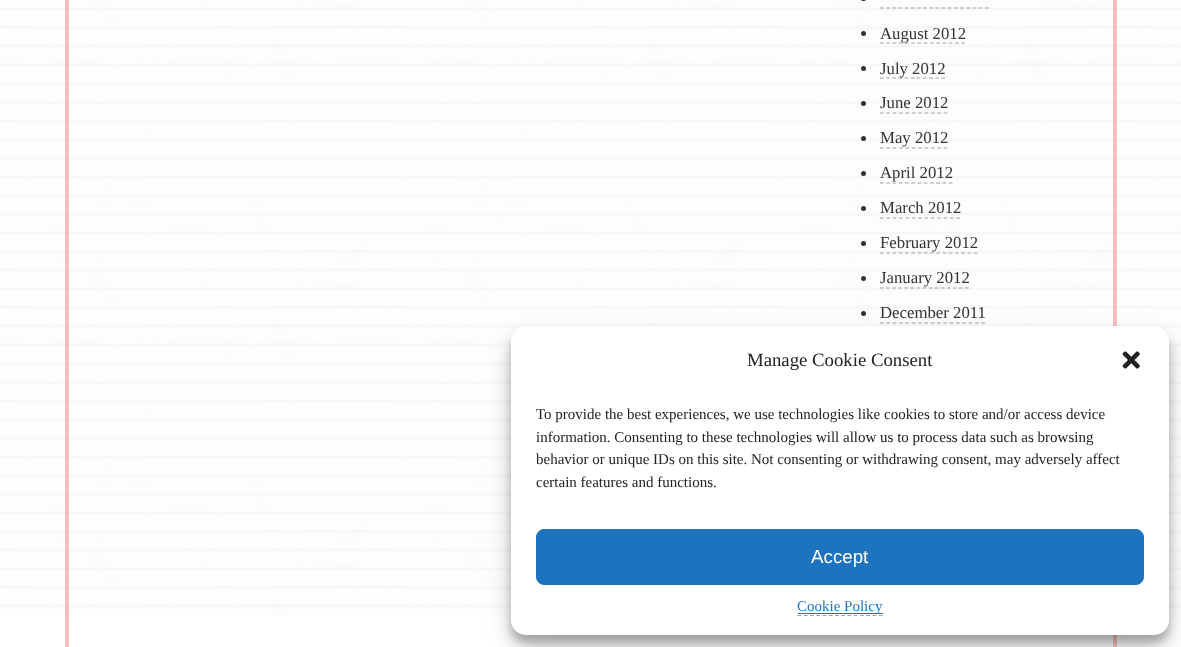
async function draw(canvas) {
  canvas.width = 1181
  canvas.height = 647
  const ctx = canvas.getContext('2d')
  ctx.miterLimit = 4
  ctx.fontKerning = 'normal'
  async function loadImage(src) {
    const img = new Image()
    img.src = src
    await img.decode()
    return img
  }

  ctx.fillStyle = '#fff'
  ctx.fillRect(0, 0, 1181, 647)
  ctx.drawImage(await loadImage('image0.png'), 0, 0, 1181, 616)
  ctx.fillStyle = '#f40d0d40'
  ctx.fillRect(1113, 0, 4, 326)
  ctx.fillRect(65, 0, 4, 616)
  ctx.fillStyle = '#333'
  ctx.beginPath()
  ctx.roundRect(861, -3, 5, 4, 2.5)
  ctx.fill()
  ctx.beginPath()
  ctx.moveTo(880, 8)
  ctx.lineTo(989, 8)
  ctx.strokeStyle = '#64646499'
  ctx.lineWidth = 1.2
  ctx.setLineDash([3.75, 2.42])
  ctx.stroke()
  ctx.beginPath()
  ctx.arc(863.5, 33.5, 2.5, 0, 2 * Math.PI)
  ctx.fill()
  ctx.beginPath()
  ctx.moveTo(880, 43)
  ctx.lineTo(965, 43)
  ctx.strokeStyle = '#a1a1a1'
  ctx.setLineDash([3.75, 2.5])
  ctx.stroke()
  ctx.font = '16.75px Liberation Serif'
  ctx.fillText('August 2012', 880, 39)
  ctx.beginPath()
  ctx.arc(863.5, 68.5, 2.5, 0, 2 * Math.PI)
  ctx.fill()
  ctx.beginPath()
  ctx.moveTo(880, 78)
  ctx.lineTo(945, 78)
  ctx.setLineDash([3.75, 2.38])
  ctx.stroke()
  ctx.fillText('July 2012', 880, 74)
  ctx.beginPath()
  ctx.arc(863.5, 103.5, 2.5, 0, 2 * Math.PI)
  ctx.fill()
  ctx.fillText('June 2012', 880, 108)
  ctx.beginPath()
  ctx.moveTo(880, 113)
  ctx.lineTo(947.5, 113)
  ctx.setLineDash([3.75, 2.62])
  ctx.stroke()
  ctx.beginPath()
  ctx.arc(863.5, 138.5, 2.5, 0, 2 * Math.PI)
  ctx.fill()
  ctx.fillText('May 2012', 880, 143)
  ctx.beginPath()
  ctx.moveTo(880, 148)
  ctx.lineTo(947.5, 148)
  ctx.stroke()
  ctx.beginPath()
  ctx.arc(863.5, 173.5, 2.5, 0, 2 * Math.PI)
  ctx.fill()
  ctx.fillText('April 2012', 880, 178)
  ctx.beginPath()
  ctx.moveTo(880, 183)
  ctx.lineTo(952.5, 183)
  ctx.setLineDash([3.75, 2.5])
  ctx.stroke()
  ctx.beginPath()
  ctx.arc(863.5, 208.5, 2.5, 0, 2 * Math.PI)
  ctx.fill()
  ctx.fillText('March 2012', 880, 213)
  ctx.beginPath()
  ctx.moveTo(880, 218)
  ctx.lineTo(960, 218)
  ctx.setLineDash([3.75, 2.6])
  ctx.stroke()
  ctx.beginPath()
  ctx.arc(863.5, 243.5, 2.5, 0, 2 * Math.PI)
  ctx.fill()
  ctx.fillText('February 2012', 880, 248)
  ctx.beginPath()
  ctx.moveTo(880, 253)
  ctx.lineTo(977.5, 253)
  ctx.strokeStyle = '#64646499'
  ctx.setLineDash([3.75, 2.5])
  ctx.stroke()
  ctx.beginPath()
  ctx.arc(863.5, 278.5, 2.5, 0, 2 * Math.PI)
  ctx.fill()
  ctx.fillText('January 2012', 880, 283)
  ctx.beginPath()
  ctx.moveTo(880, 288)
  ctx.lineTo(969, 288)
  ctx.setLineDash([3.75, 2.33])
  ctx.stroke()
  ctx.beginPath()
  ctx.arc(863.5, 313.5, 2.5, 0, 2 * Math.PI)
  ctx.fill()
  ctx.fillText('December 2011', 880, 318)
  ctx.beginPath()
  ctx.moveTo(880, 323)
  ctx.lineTo(985, 323)
  ctx.strokeStyle = '#a1a1a1'
  ctx.setLineDash([3.75, 2.58])
  ctx.stroke()
  ctx.fillStyle = '#fbc1c1'
  ctx.fillRect(1113, 635, 4, 12)
  ctx.fillRect(65, 616, 4, 31)
  ctx.fillStyle = '#0000003b'
  ctx.filter = 'blur(4px)'
  ctx.beginPath()
  ctx.roundRect(511, 334, 658, 309, 15)
  ctx.fill()
  ctx.filter = 'none'
  ctx.fillStyle = '#00000030'
  ctx.filter = 'blur(12.5px)'
  ctx.beginPath()
  ctx.roundRect(511, 339, 658, 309, 15)
  ctx.fill()
  ctx.filter = 'none'
  ctx.fillStyle = '#fff'
  ctx.beginPath()
  ctx.roundRect(511, 326, 658, 309, 15)
  ctx.fill()
  ctx.font = '18.75px Liberation Serif'
  ctx.fillStyle = '#222'
  ctx.fillText('Manage Cookie Consent', 747, 366)
  ctx.drawImage(await loadImage('image1.png'), 1122, 351, 18, 18)
  ctx.font = '15px Liberation Serif'
  ctx.fillText('To provide the best experiences, we use technologies like cookies to store and/or access device', 536, 419)
  ctx.fillText('information. Consenting to these technologies will allow us to process data such as browsing', 536, 442)
  ctx.fillText('behavior or unique IDs on this site. Not consenting or withdrawing consent, may adversely affect', 536, 464)
  ctx.fillText('certain features and functions.', 536, 487)
  ctx.fillStyle = '#1e73be'
  ctx.beginPath()
  ctx.roundRect(536.5, 529.5, 607, 55, 7.5)
  ctx.fill()
  ctx.strokeStyle = '#1e73be'
  ctx.lineWidth = 1
  ctx.setLineDash([])
  ctx.stroke()
  ctx.font = '18.75px Liberation Sans'
  ctx.fillStyle = '#fff'
  ctx.fillText('Accept', 811, 563)
  ctx.beginPath()
  ctx.moveTo(797.5, 615.5)
  ctx.lineTo(882.5, 615.5)
  ctx.strokeStyle = '#a2a2a2'
  ctx.lineWidth = 1.2
  ctx.setLineDash([3.75, 2.5])
  ctx.stroke()
  ctx.fillStyle = '#1e73be'
  ctx.fillRect(798, 613, 85, 1)
  ctx.font = '15px Liberation Serif'
  ctx.fillText('Cookie Policy', 797, 611)
}

draw(document.querySelector('canvas'))
